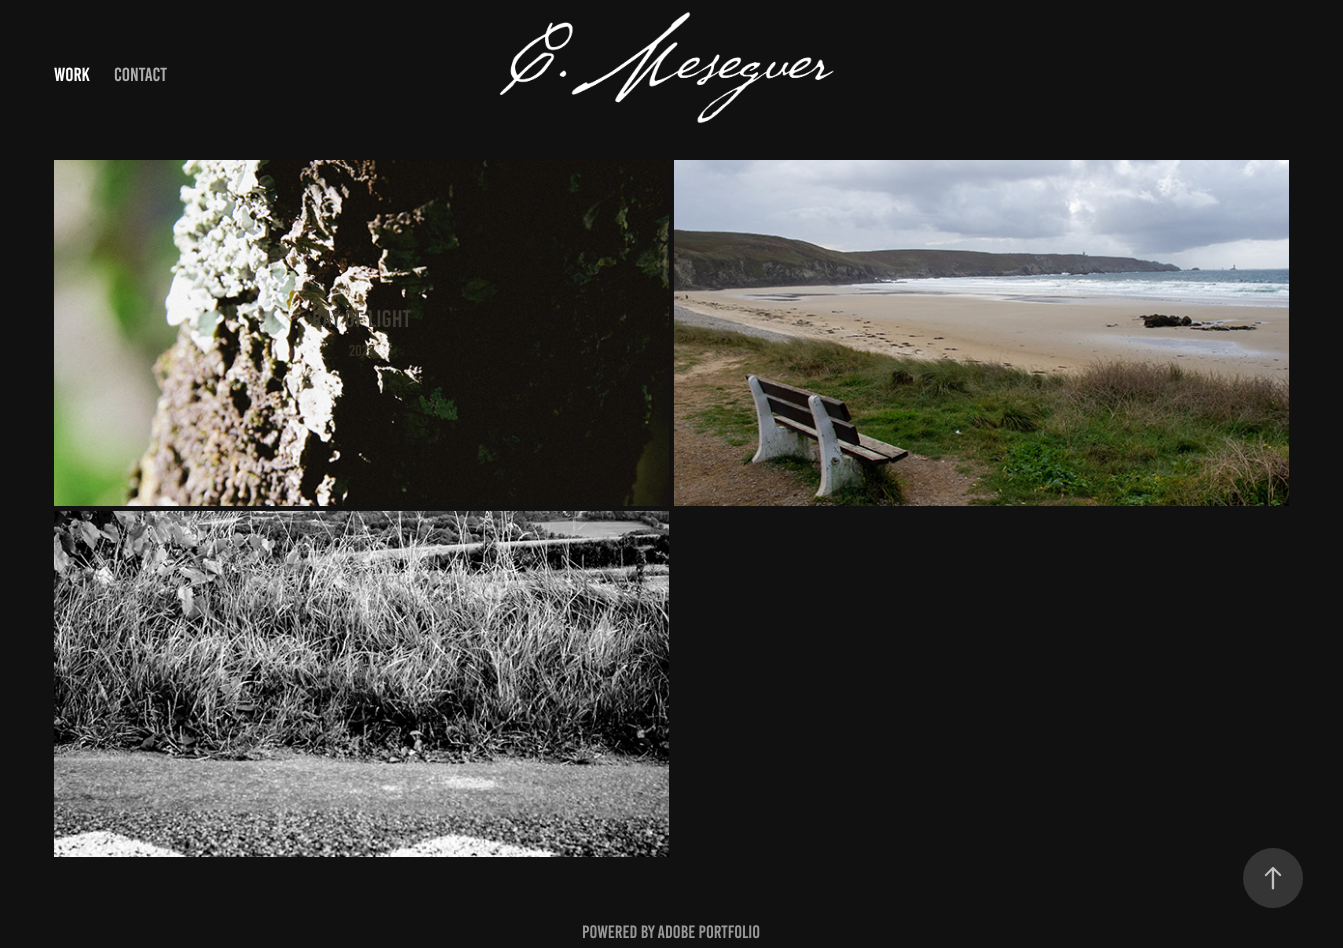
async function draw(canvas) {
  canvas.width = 1343
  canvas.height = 948
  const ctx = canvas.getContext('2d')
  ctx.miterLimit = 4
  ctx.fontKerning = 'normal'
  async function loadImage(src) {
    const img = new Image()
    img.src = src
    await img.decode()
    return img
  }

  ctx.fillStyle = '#111'
  ctx.fillRect(0, 0, 1343, 948)
  ctx.font = '19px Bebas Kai'
  ctx.fillStyle = '#fff'
  ctx.fillText('WORK', 54, 81)
  ctx.fillStyle = '#aeaeae'
  ctx.fillText('CONTACT', 114, 81)
  ctx.drawImage(await loadImage('image0.png'), 499, 11, 335, 113)
  ctx.drawImage(await loadImage('image1.png'), 54, 160, 615, 346)
  ctx.font = '24px Bebas Kai'
  ctx.fillStyle = '#403c33'
  ctx.fillText('RAY OF LIGHT', 312, 327)
  ctx.font = '16px Bebas Kai'
  ctx.fillStyle = '#342f24'
  ctx.fillText('2023', 349, 356)
  ctx.drawImage(await loadImage('image2.png'), 674, 160, 615, 346)
  ctx.drawImage(await loadImage('image3.png'), 54, 511, 615, 346)
  ctx.font = '24px Bebas Kai'
  ctx.fillStyle = '#626262'
  ctx.fillText('A', 356, 678)
  ctx.font = '16px Bebas Kai'
  ctx.fillStyle = '#1e1e1e'
  ctx.fillText('2017', 349, 707)
  ctx.fillStyle = '#353535'
  ctx.beginPath()
  ctx.arc(1273, 878, 30, 0, 2 * Math.PI)
  ctx.fill()
  ctx.drawImage(await loadImage('image4.png'), 1264, 867, 18, 23)
  ctx.font = '18px Bebas Kai'
  ctx.fillStyle = '#999'
  ctx.fillText('Powered by Adobe Portfolio', 582, 938)
}

draw(document.querySelector('canvas'))
